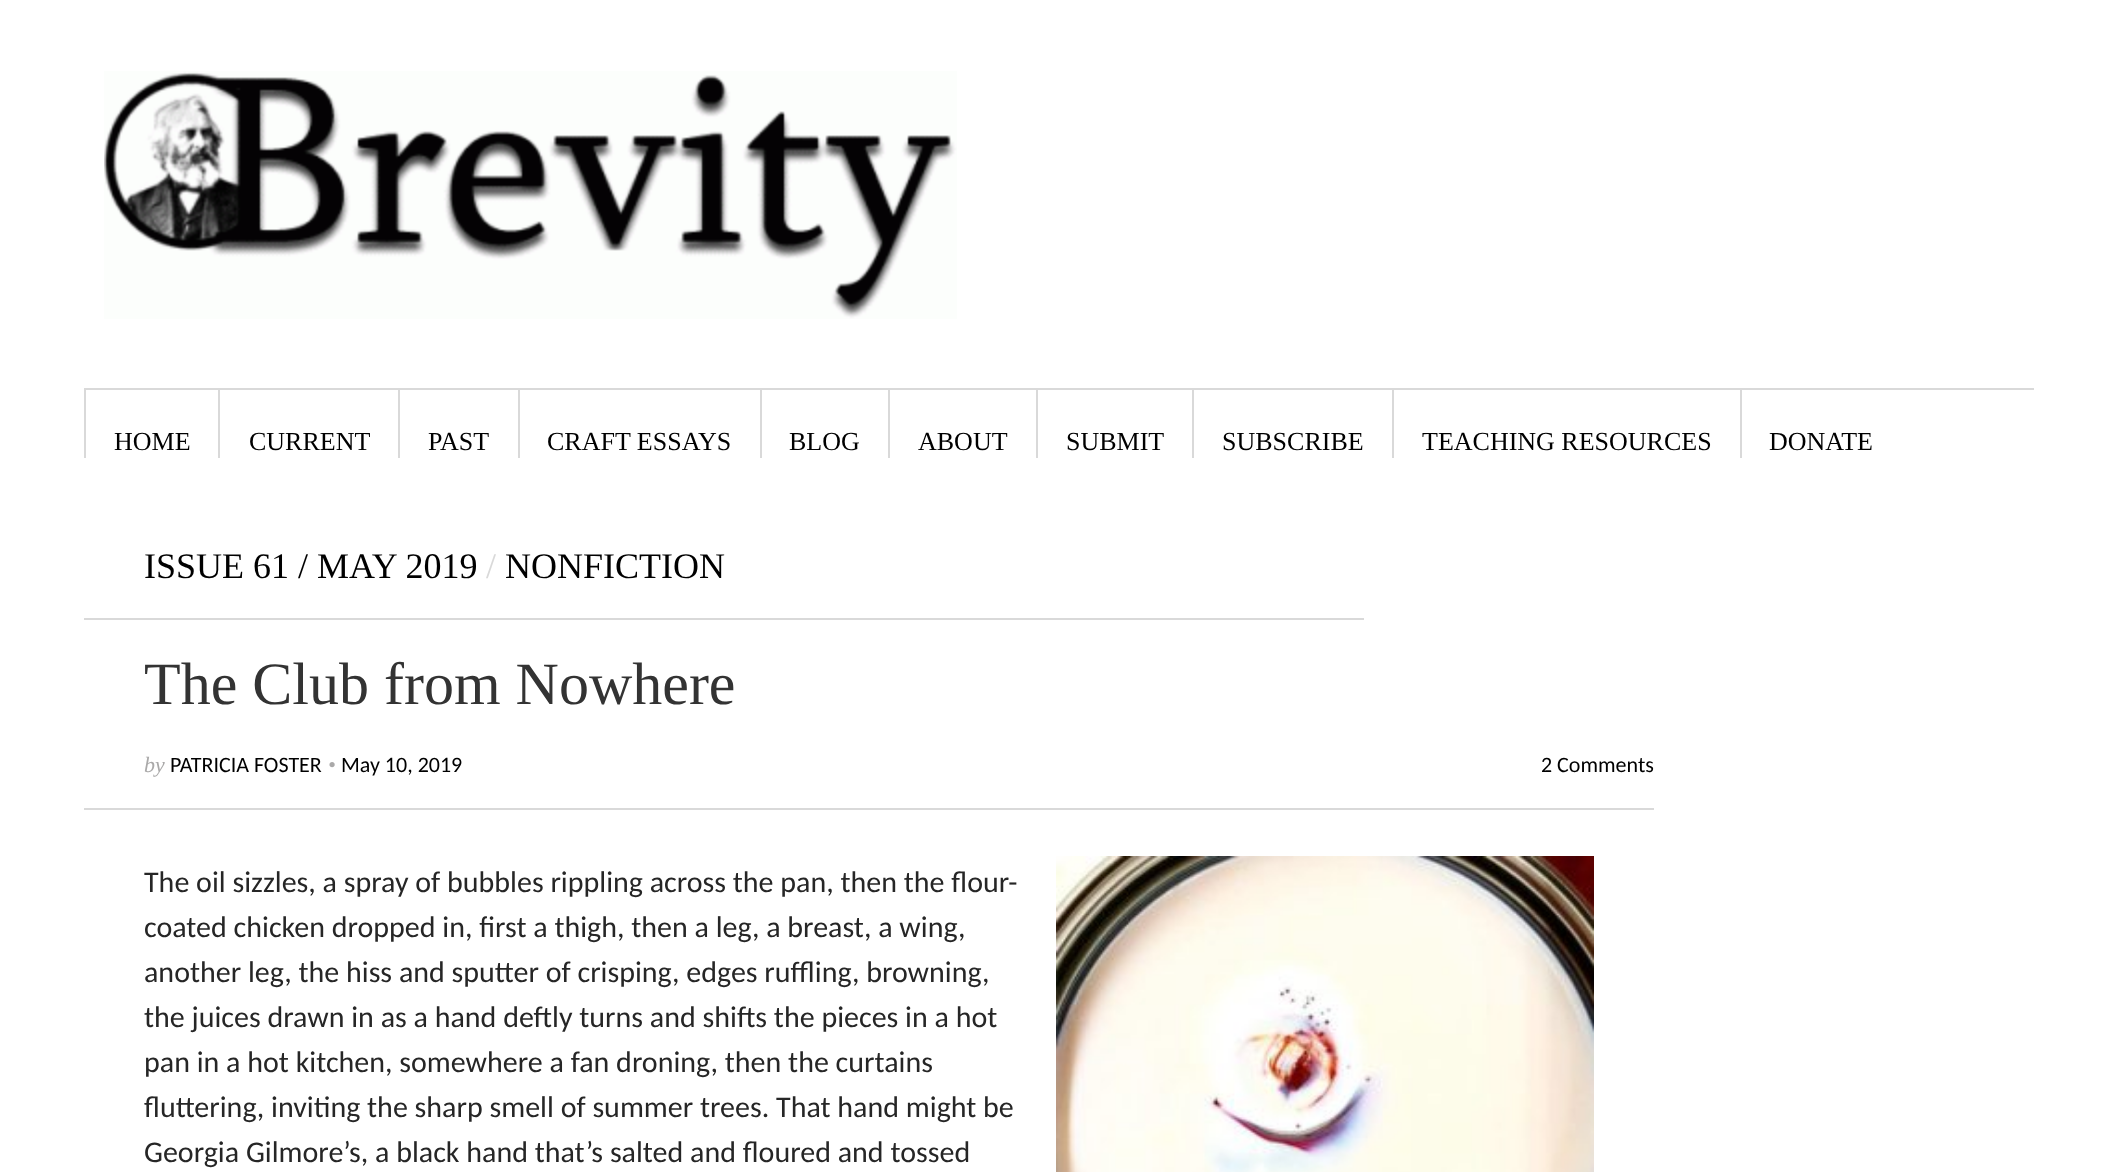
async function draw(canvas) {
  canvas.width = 2117
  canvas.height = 1172
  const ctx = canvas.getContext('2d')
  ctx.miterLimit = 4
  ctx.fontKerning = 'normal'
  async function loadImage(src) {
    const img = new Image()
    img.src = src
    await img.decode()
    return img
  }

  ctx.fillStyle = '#fff'
  ctx.fillRect(0, 0, 2117, 1172)
  ctx.drawImage(await loadImage('image0.png'), 104, 71, 853, 248)
  ctx.fillStyle = '#d9d9d9'
  ctx.fillRect(84, 388, 1950, 2)
  ctx.fillRect(84, 390, 2, 68)
  ctx.font = '26px Liberation Serif'
  ctx.fillStyle = '#000'
  ctx.fillText('HOME', 114, 450)
  ctx.fillStyle = '#d9d9d9'
  ctx.fillRect(218, 390, 2, 68)
  ctx.fillStyle = '#000'
  ctx.fillText('CURRENT', 249, 450)
  ctx.fillStyle = '#d9d9d9'
  ctx.fillRect(398, 390, 2, 68)
  ctx.fillStyle = '#000'
  ctx.fillText('PAST', 428, 450)
  ctx.fillStyle = '#d9d9d9'
  ctx.fillRect(518, 390, 2, 68)
  ctx.fillStyle = '#000'
  ctx.fillText('CRAFT ESSAYS', 547, 450)
  ctx.fillStyle = '#d9d9d9'
  ctx.fillRect(760, 390, 2, 68)
  ctx.fillStyle = '#000'
  ctx.fillText('BLOG', 789, 450)
  ctx.fillStyle = '#d9d9d9'
  ctx.fillRect(888, 390, 2, 68)
  ctx.fillStyle = '#000'
  ctx.fillText('ABOUT', 918, 450)
  ctx.fillStyle = '#d9d9d9'
  ctx.fillRect(1036, 390, 2, 68)
  ctx.fillStyle = '#000'
  ctx.fillText('SUBMIT', 1066, 450)
  ctx.fillStyle = '#d9d9d9'
  ctx.fillRect(1192, 390, 2, 68)
  ctx.fillStyle = '#000'
  ctx.fillText('SUBSCRIBE', 1222, 450)
  ctx.fillStyle = '#d9d9d9'
  ctx.fillRect(1392, 390, 2, 68)
  ctx.fillStyle = '#000'
  ctx.fillText('TEACHING RESOURCES', 1422, 450)
  ctx.fillStyle = '#d9d9d9'
  ctx.fillRect(1740, 390, 2, 68)
  ctx.fillStyle = '#000'
  ctx.fillText('DONATE', 1769, 450)
  ctx.fillStyle = '#d9d9d9'
  ctx.fillRect(84, 618, 1280, 2)
  ctx.font = '36px Liberation Serif'
  ctx.fillStyle = '#000'
  ctx.fillText('ISSUE 61 / MAY 2019', 144, 578)
  ctx.fillStyle = '#d9d9d9'
  ctx.fillText('/', 486, 578)
  ctx.fillStyle = '#000'
  ctx.fillText('NONFICTION', 505, 578)
  ctx.fillStyle = '#d9d9d9'
  ctx.fillRect(84, 808, 1570, 2)
  ctx.font = '60px Liberation Serif'
  ctx.fillStyle = '#333'
  ctx.fillText('The Club from Nowhere', 144, 704)
  ctx.font = 'italic 22px Liberation Serif'
  ctx.fillStyle = '#aaa9a9'
  ctx.fillText('by', 144, 772)
  ctx.font = '22px Carlito'
  ctx.fillStyle = '#000'
  ctx.fillText('PATRICIA FOSTER', 170, 772)
  ctx.font = 'italic 22px Liberation Serif'
  ctx.fillStyle = '#aaa9a9'
  ctx.fillText('•', 328, 772)
  ctx.font = '22px Carlito'
  ctx.fillStyle = '#000'
  ctx.fillText('May 10, 2019', 341, 772)
  ctx.fillText('2 Comments', 1541, 772)
  ctx.font = '30px Carlito'
  ctx.fillStyle = '#262626'
  ctx.fillText('The oil sizzles, a spray of bubbles rippling across the pan, then the flour-', 144, 892)
  ctx.fillText('coated chicken dropped in, first a thigh, then a leg, a breast, a wing,', 144, 937)
  ctx.fillText('another leg, the hiss and sputter of crisping, edges ruffling, browning,', 144, 982)
  ctx.fillText('the juices drawn in as a hand deftly turns and shifts the pieces in a hot', 144, 1027)
  ctx.fillText('pan in a hot kitchen, somewhere a fan droning, then the curtains', 144, 1072)
  ctx.fillText('fluttering, inviting the sharp smell of summer trees. That hand might be', 144, 1117)
  ctx.fillText('Georgia Gilmore’s, a black hand that’s salted and floured and tossed', 144, 1162)
  ctx.drawImage(await loadImage('image1.png'), 1056, 856, 538, 316)
}

draw(document.querySelector('canvas'))
